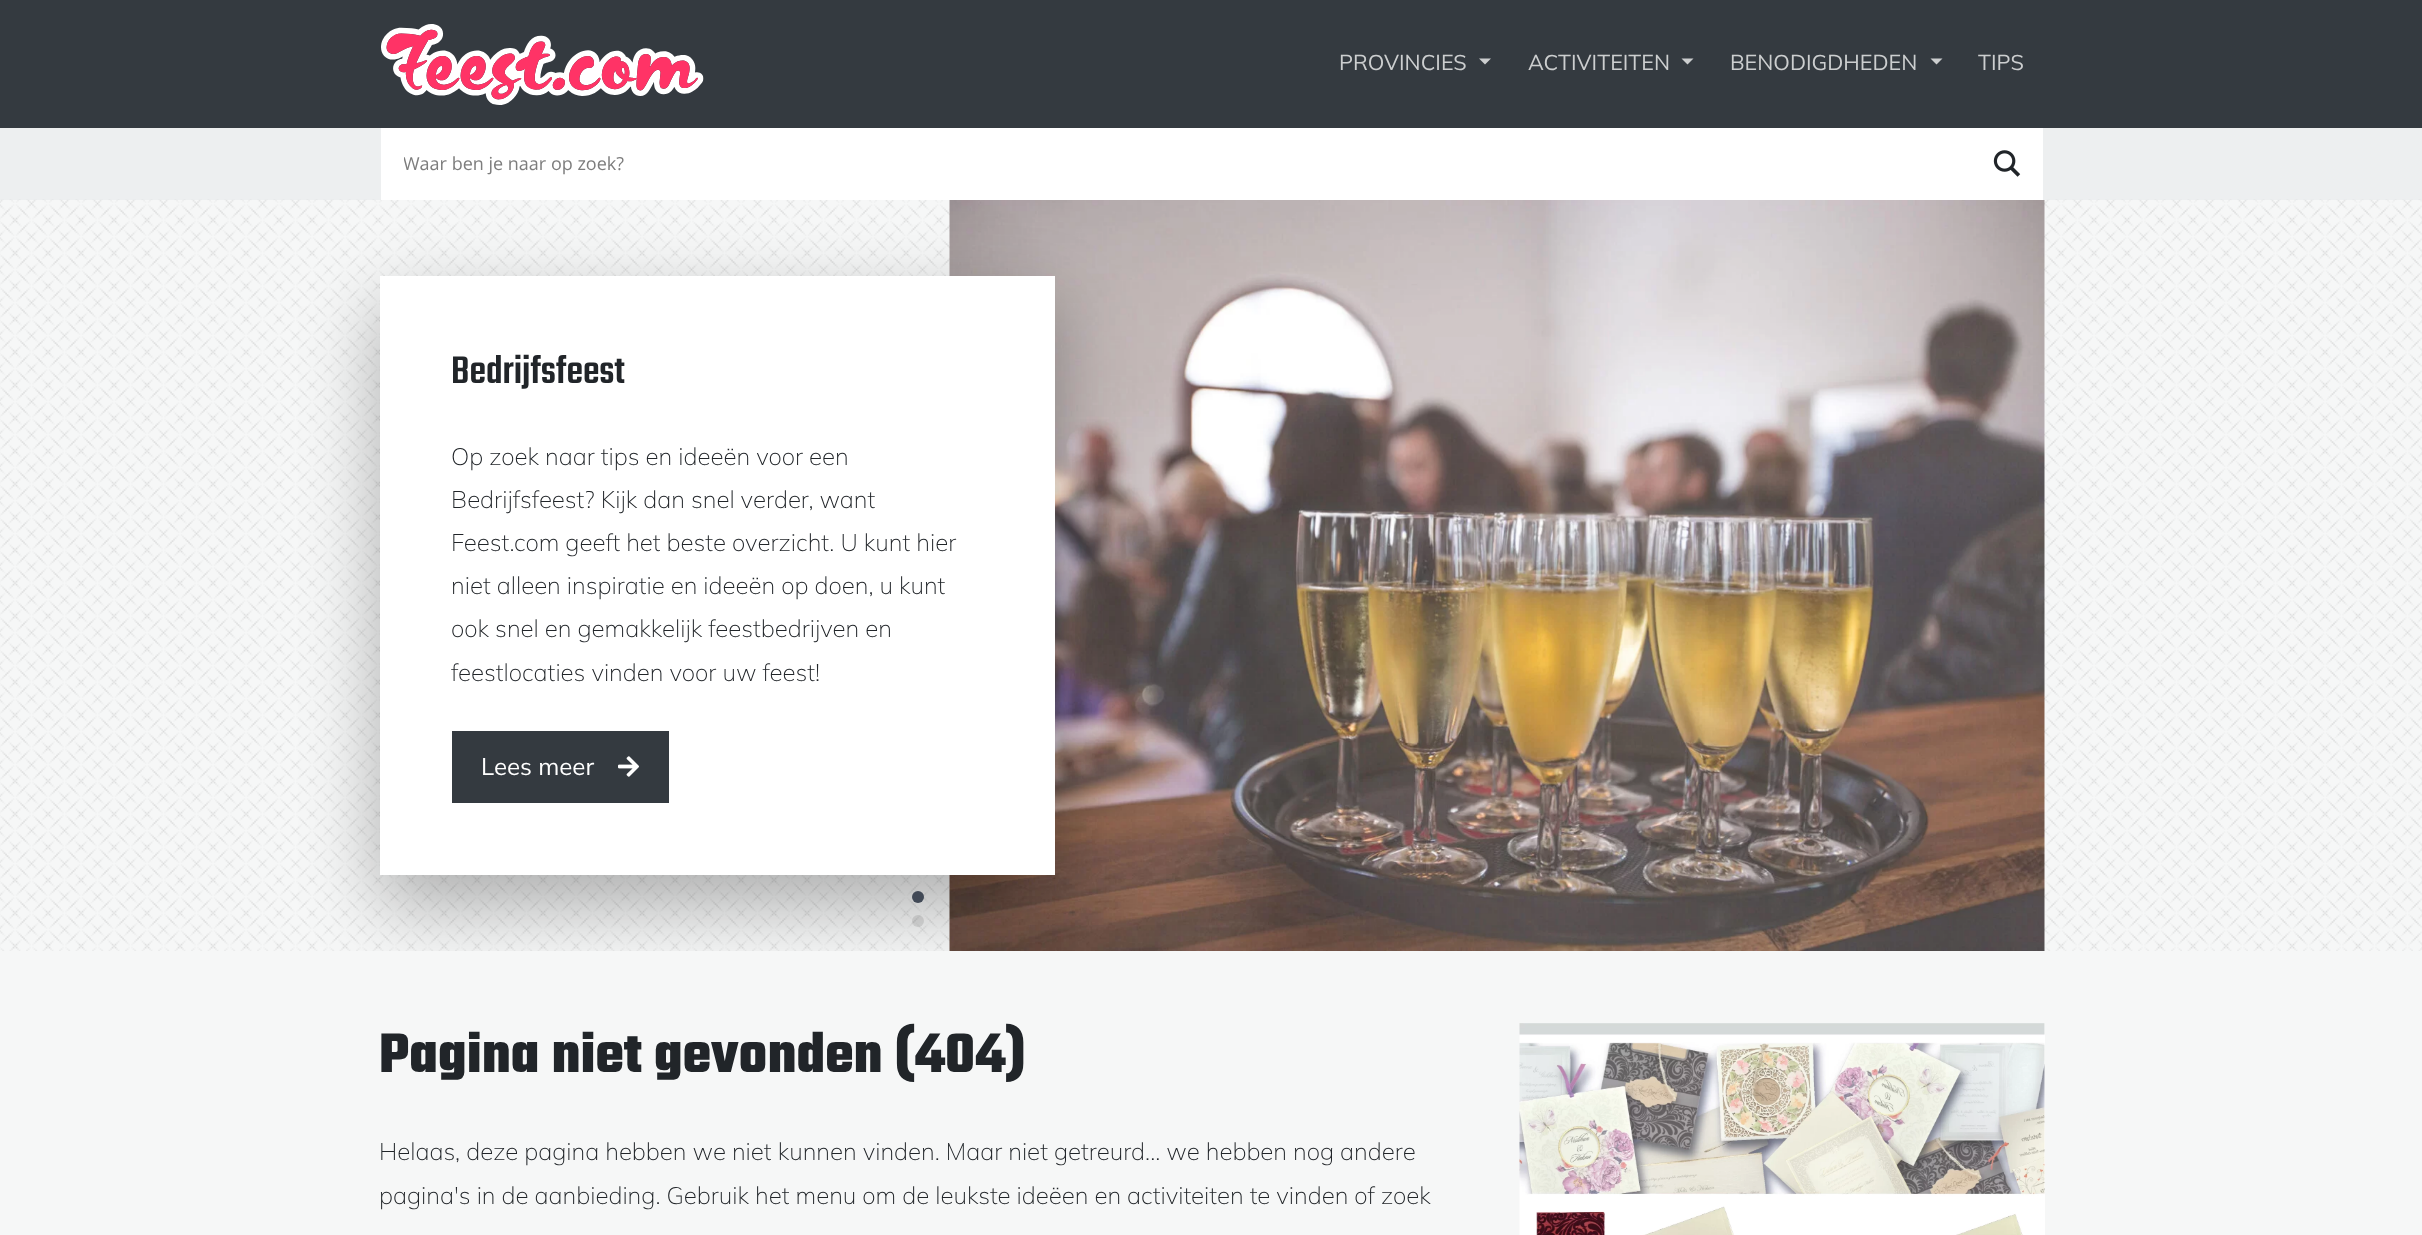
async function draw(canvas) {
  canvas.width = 2422
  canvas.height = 1235
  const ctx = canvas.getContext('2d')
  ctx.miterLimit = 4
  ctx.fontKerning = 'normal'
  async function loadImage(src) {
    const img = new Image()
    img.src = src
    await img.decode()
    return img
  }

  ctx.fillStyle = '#f6f7f7'
  ctx.fillRect(0, 0, 2422, 1235)
  ctx.fillStyle = '#343a40'
  ctx.fillRect(0, 0, 2422, 128)
  ctx.drawImage(await loadImage('image0.png'), 381, 24, 323, 81)
  ctx.font = '21.5px Mulish'
  ctx.fillStyle = '#cccecf'
  ctx.fillText('PROVINCIES', 1339, 70)
  ctx.beginPath()
  ctx.moveTo(1479, 58.5)
  ctx.lineTo(1491, 58.5)
  ctx.lineTo(1485, 64.5)
  ctx.closePath()
  ctx.fill()
  ctx.fillText('ACTIVITEITEN', 1528, 70)
  ctx.beginPath()
  ctx.moveTo(1681.5, 58.5)
  ctx.lineTo(1693.5, 58.5)
  ctx.lineTo(1687.5, 64.5)
  ctx.closePath()
  ctx.fill()
  ctx.fillText('BENODIGDHEDEN', 1730, 70)
  ctx.beginPath()
  ctx.moveTo(1930.5, 58.5)
  ctx.lineTo(1942.5, 58.5)
  ctx.lineTo(1936.5, 64.5)
  ctx.closePath()
  ctx.fill()
  ctx.fillText('TIPS', 1978, 70)
  ctx.fillStyle = '#edeff0'
  ctx.fillRect(0, 128, 2422, 72)
  ctx.drawImage(await loadImage('image2.png'), 0, 199, 2422, 752)
  ctx.drawImage(await loadImage('image4.png'), 949, 200, 1096, 751)
  ctx.save()
  ctx.beginPath()
  ctx.rect(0, 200, 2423, 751)
  ctx.clip()
  ctx.fillStyle = '#0000004d'
  ctx.filter = 'blur(37.5px)'
  ctx.beginPath()
  ctx.rect(380, 306, 675, 599)
  ctx.fill()
  ctx.filter = 'none'
  ctx.restore()
  ctx.fillStyle = '#fff'
  ctx.fillRect(381, 128, 1662, 72)
  ctx.save()
  ctx.beginPath()
  ctx.rect(404, 152, 1560, 25)
  ctx.clip()
  ctx.font = '18px Open Sans'
  ctx.fillStyle = '#7d7d7d'
  ctx.fillText('Waar ben je naar op zoek?', 403, 170)
  ctx.restore()
  ctx.drawImage(await loadImage('image1.png'), 1993, 150, 28, 27)
  ctx.fillRect(380, 276, 675, 599)
  ctx.font = '500 42px Teko'
  ctx.fillStyle = '#212529'
  ctx.fillText('Bedrijfsfeest', 451, 383)
  ctx.font = '200 24px Mulish'
  ctx.fillText('Op zoek naar tips en ideeën voor een', 451, 465)
  ctx.fillText('Bedrijfsfeest? Kijk dan snel verder, want', 451, 508)
  ctx.fillText('Feest.com geeft het beste overzicht. U kunt hier', 451, 551)
  ctx.fillText('niet alleen inspiratie en ideeën op doen, u kunt', 451, 594)
  ctx.fillText('ook snel en gemakkelijk feestbedrijven en', 451, 637)
  ctx.fillText('feestlocaties vinden voor uw feest!', 451, 681)
  ctx.fillStyle = '#343a40'
  ctx.fillRect(452, 731, 217, 72)
  ctx.font = '24px Mulish'
  ctx.fillStyle = '#fff'
  ctx.fillText('Lees meer', 481, 775)
  ctx.drawImage(await loadImage('image3.png'), 618, 756, 21, 21)
  ctx.fillStyle = '#414956'
  ctx.beginPath()
  ctx.arc(918, 897, 6, 0, 2 * Math.PI)
  ctx.fill()
  ctx.fillStyle = '#0000001a'
  ctx.beginPath()
  ctx.arc(918, 921, 6, 0, 2 * Math.PI)
  ctx.fill()
  ctx.font = 'bold 60px Teko'
  ctx.fillStyle = '#212529'
  ctx.fillText('Pagina niet gevonden (404)', 379, 1072)
  ctx.font = '200 24px Mulish'
  ctx.fillText('Helaas, deze pagina hebben we niet kunnen vinden. Maar niet getreurd... we hebben nog andere', 379, 1160)
  ctx.fillText('pagina\'s in de aanbieding. Gebruik het menu om de leukste ideëen en activiteiten te vinden of zoek', 379, 1204)
  ctx.fillStyle = '#fff'
  ctx.fillRect(2044, 1023, 1, 212)
  ctx.drawImage(await loadImage('image5.png'), 1519, 1023, 526, 212)
}

draw(document.querySelector('canvas'))
